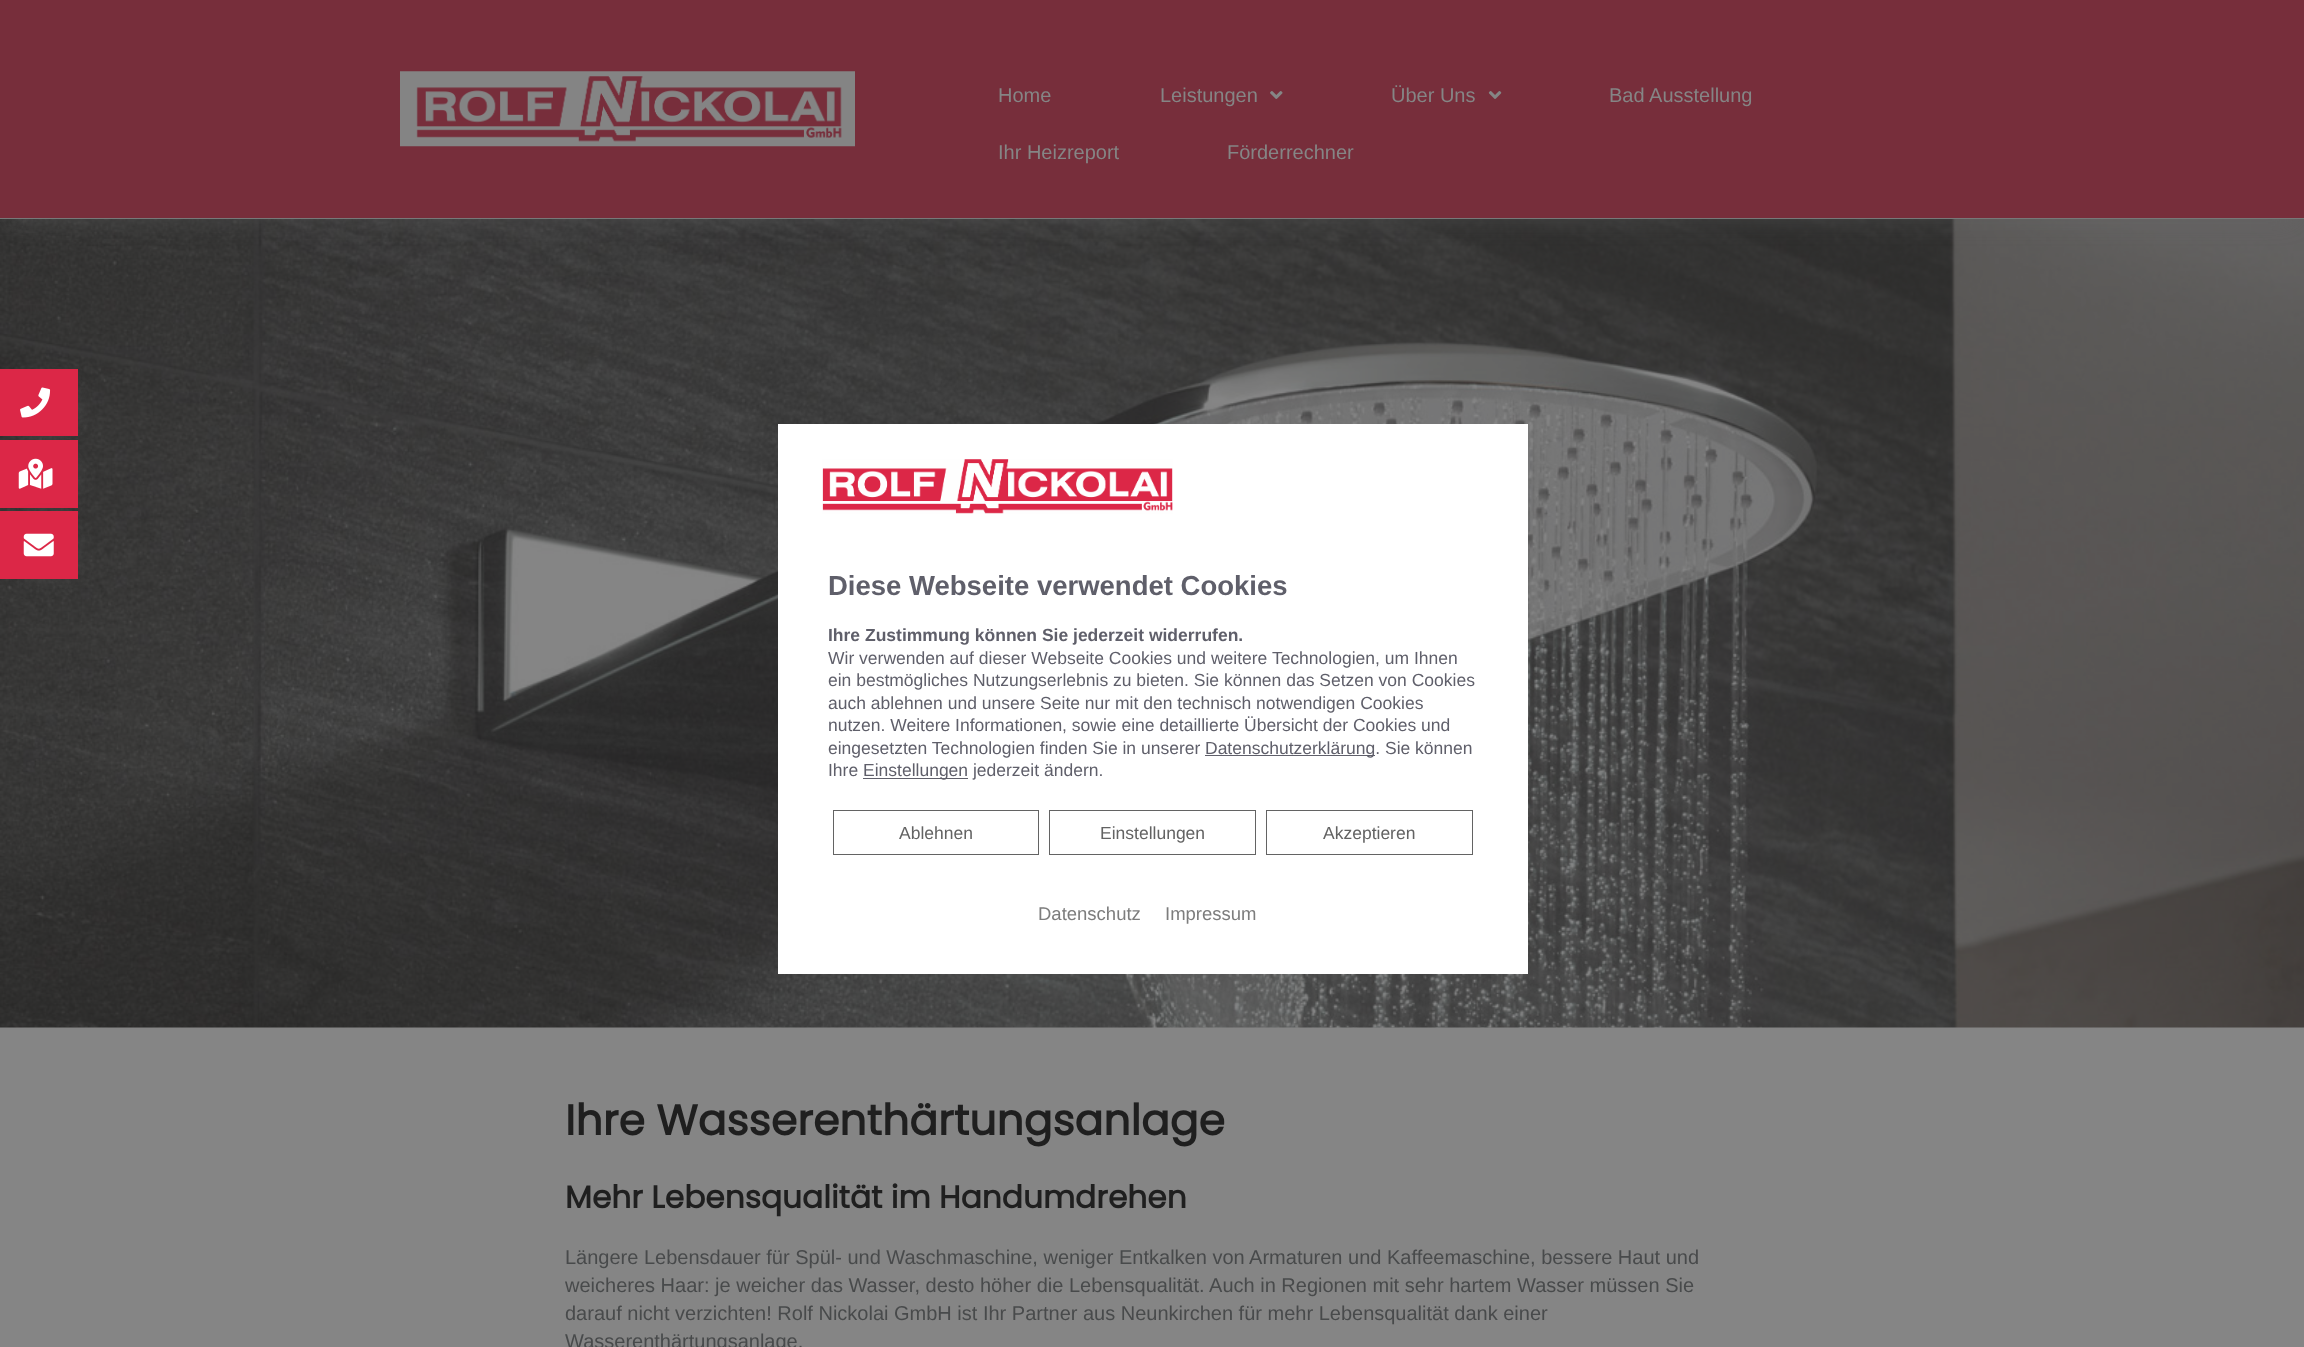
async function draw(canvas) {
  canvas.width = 2304
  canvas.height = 1347
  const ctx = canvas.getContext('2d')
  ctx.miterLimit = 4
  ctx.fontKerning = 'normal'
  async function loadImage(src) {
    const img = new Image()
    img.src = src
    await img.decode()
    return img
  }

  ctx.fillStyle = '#858585'
  ctx.fillRect(0, 0, 2304, 1347)
  ctx.drawImage(await loadImage('image6.png'), 0, 219, 2304, 809)
  ctx.fillStyle = '#66666666'
  ctx.filter = 'blur(12.5px)'
  ctx.beginPath()
  ctx.rect(13, 25, 2280, 194)
  ctx.fill()
  ctx.filter = 'none'
  ctx.fillStyle = '#772e3b'
  ctx.fillRect(0, 0, 2304, 218)
  ctx.fillStyle = '#787878'
  ctx.fillRect(0, 218, 2304, 1)
  ctx.drawImage(await loadImage('image0.png'), 400, 71, 455, 76)
  ctx.font = '20px Liberation Sans'
  ctx.fillStyle = '#858585'
  ctx.fillText('Home', 998, 102)
  ctx.fillText('Leistungen', 1160, 102)
  ctx.drawImage(await loadImage('image1.png'), 1270, 91, 13, 8)
  ctx.fillText('Über Uns', 1391, 102)
  ctx.drawImage(await loadImage('image2.png'), 1488, 91, 14, 8)
  ctx.fillText('Bad Ausstellung', 1609, 102)
  ctx.fillText('Ihr Heizreport', 998, 159)
  ctx.fillText('Förderrechner', 1227, 159)
  ctx.fillStyle = '#5e5e5e63'
  ctx.filter = 'blur(9.5px)'
  ctx.beginPath()
  ctx.roundRect(13, 381, 65, 55, 27.5)
  ctx.fill()
  ctx.filter = 'none'
  ctx.fillStyle = '#dc2747'
  ctx.fillRect(0, 369, 78, 67)
  ctx.drawImage(await loadImage('image3.png'), 20, 387, 31, 31)
  ctx.fillStyle = '#5e5e5e63'
  ctx.filter = 'blur(9.5px)'
  ctx.beginPath()
  ctx.roundRect(13, 453, 65, 55, 27.5)
  ctx.fill()
  ctx.filter = 'none'
  ctx.fillStyle = '#dc2747'
  ctx.fillRect(0, 440, 78, 68)
  ctx.drawImage(await loadImage('image4.png'), 18, 458, 35, 31)
  ctx.fillStyle = '#5e5e5e63'
  ctx.filter = 'blur(9.5px)'
  ctx.beginPath()
  ctx.roundRect(13, 524, 65, 55, 27.5)
  ctx.fill()
  ctx.filter = 'none'
  ctx.fillStyle = '#dc2747'
  ctx.fillRect(0, 511, 78, 68)
  ctx.drawImage(await loadImage('image5.png'), 23, 533, 31, 24)
  ctx.font = 'bold 42.5px Poppins'
  ctx.fillStyle = '#1f1f1f'
  ctx.fillText('Ihre Wasserenthärtungsanlage', 565, 1135)
  ctx.font = 'bold 31.25px Poppins'
  ctx.fillText('Mehr Lebensqualität im Handumdrehen', 565, 1208)
  ctx.font = '20px Liberation Sans'
  ctx.fillStyle = '#484a4b'
  ctx.fillText('Längere Lebensdauer für Spül- und Waschmaschine, weniger Entkalken von Armaturen und Kaffeemaschine, bessere Haut und', 565, 1264)
  ctx.fillText('weicheres Haar: je weicher das Wasser, desto höher die Lebensqualität. Auch in Regionen mit sehr hartem Wasser müssen Sie', 565, 1292)
  ctx.fillText('darauf nicht verzichten! Rolf Nickolai GmbH ist Ihr Partner aus Neunkirchen für mehr Lebensqualität dank einer', 565, 1320)
  ctx.fillText('Wasserenthärtungsanlage.', 565, 1348)
  ctx.fillStyle = '#fff'
  ctx.fillRect(778, 424, 750, 550)
  ctx.drawImage(await loadImage('image7.png'), 822, 459, 351, 55)
  ctx.font = 'bold 27.5px Liberation Sans'
  ctx.fillStyle = '#5f5f6a'
  ctx.fillText('Diese Webseite verwendet Cookies', 828, 595)
  ctx.font = 'bold 17.5px Liberation Sans'
  ctx.fillText('Ihre Zustimmung können Sie jederzeit widerrufen.', 828, 641)
  ctx.font = '17.5px Liberation Sans'
  ctx.fillText('Wir verwenden auf dieser Webseite Cookies und weitere Technologien, um Ihnen', 828, 664)
  ctx.fillText('ein bestmögliches Nutzungserlebnis zu bieten. Sie können das Setzen von Cookies', 828, 686)
  ctx.fillText('auch ablehnen und unsere Seite nur mit den technisch notwendigen Cookies', 828, 709)
  ctx.fillText('nutzen. Weitere Informationen, sowie eine detaillierte Übersicht der Cookies und', 828, 731)
  ctx.fillText('eingesetzten Technologien finden Sie in unserer', 828, 754)
  ctx.fillRect(1205, 755, 170, 1)
  ctx.fillText('Datenschutzerklärung. Sie können', 1205, 754)
  ctx.fillText('Ihre', 828, 776)
  ctx.fillRect(863, 778, 105, 1)
  ctx.fillText('Einstellungen jederzeit ändern.', 863, 776)
  ctx.strokeStyle = '#636363'
  ctx.strokeRect(833.5, 810.5, 205, 44)
  ctx.fillStyle = '#636363'
  ctx.fillText('Ablehnen', 899, 839)
  ctx.strokeRect(1049.5, 810.5, 206, 44)
  ctx.fillText('Einstellungen', 1100, 839)
  ctx.strokeRect(1266.5, 810.5, 206, 44)
  ctx.fillText('Akzeptieren', 1323, 839)
  ctx.font = '18.5px Liberation Sans'
  ctx.fillStyle = '#7d7d7d'
  ctx.fillText('Datenschutz', 1038, 920)
  ctx.fillText('Impressum', 1165, 920)
}

draw(document.querySelector('canvas'))
